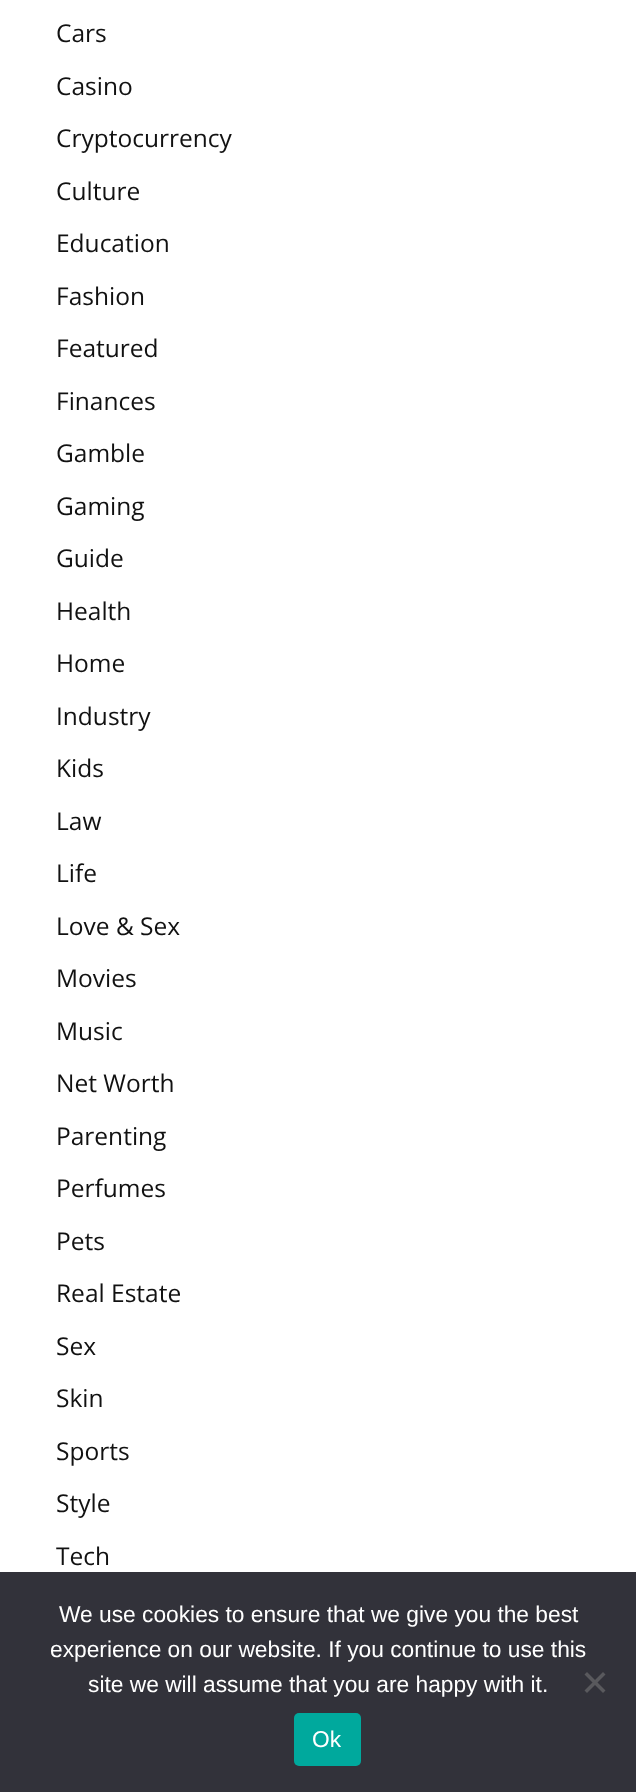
async function draw(canvas) {
  canvas.width = 636
  canvas.height = 1792
  const ctx = canvas.getContext('2d')
  ctx.miterLimit = 4
  ctx.fontKerning = 'normal'

  ctx.fillStyle = '#fff'
  ctx.fillRect(0, 0, 636, 1792)
  ctx.font = '24.5px Open Sans'
  ctx.fillStyle = '#111'
  ctx.fillText('Cars', 56, 42)
  ctx.fillText('Casino', 56, 95)
  ctx.fillText('Cryptocurrency', 56, 147)
  ctx.fillText('Culture', 56, 200)
  ctx.fillText('Education', 56, 252)
  ctx.fillText('Fashion', 56, 305)
  ctx.fillText('Featured', 56, 357)
  ctx.fillText('Finances', 56, 410)
  ctx.fillText('Gamble', 56, 462)
  ctx.fillText('Gaming', 56, 515)
  ctx.fillText('Guide', 56, 567)
  ctx.fillText('Health', 56, 620)
  ctx.fillText('Home', 56, 672)
  ctx.fillText('Industry', 56, 725)
  ctx.fillText('Kids', 56, 777)
  ctx.fillText('Law', 56, 830)
  ctx.fillText('Life', 56, 882)
  ctx.fillText('Love & Sex', 56, 935)
  ctx.fillText('Movies', 56, 987)
  ctx.fillText('Music', 56, 1040)
  ctx.fillText('Net Worth', 56, 1092)
  ctx.fillText('Parenting', 56, 1145)
  ctx.fillText('Perfumes', 56, 1197)
  ctx.fillText('Pets', 56, 1250)
  ctx.fillText('Real Estate', 56, 1302)
  ctx.fillText('Sex', 56, 1355)
  ctx.fillText('Skin', 56, 1407)
  ctx.fillText('Sports', 56, 1460)
  ctx.fillText('Style', 56, 1512)
  ctx.fillText('Tech', 56, 1565)
  ctx.fillStyle = '#32323a'
  ctx.fillRect(0, 1572, 636, 220)
  ctx.font = '22.75px Liberation Sans'
  ctx.fillStyle = '#fff'
  ctx.fillText('We use cookies to ensure that we give you the best', 59, 1622)
  ctx.fillText('experience on our website. If you continue to use this', 50, 1657)
  ctx.fillText('site we will assume that you are happy with it.', 88, 1692)
  ctx.fillStyle = '#59595d'
  ctx.beginPath()
  ctx.moveTo(603, 1672)
  ctx.lineTo(605.5, 1674.5)
  ctx.lineTo(587, 1693)
  ctx.lineTo(584.5, 1690.5)
  ctx.closePath()
  ctx.fill()
  ctx.beginPath()
  ctx.moveTo(584.5, 1674.5)
  ctx.lineTo(587, 1672)
  ctx.lineTo(605.5, 1690.5)
  ctx.lineTo(603, 1693)
  ctx.closePath()
  ctx.fill()
  ctx.fillStyle = '#00a99d'
  ctx.beginPath()
  ctx.roundRect(294, 1713, 67, 53, 5)
  ctx.fill()
  ctx.fillStyle = '#fff'
  ctx.fillText('Ok', 312, 1747)
}

draw(document.querySelector('canvas'))
